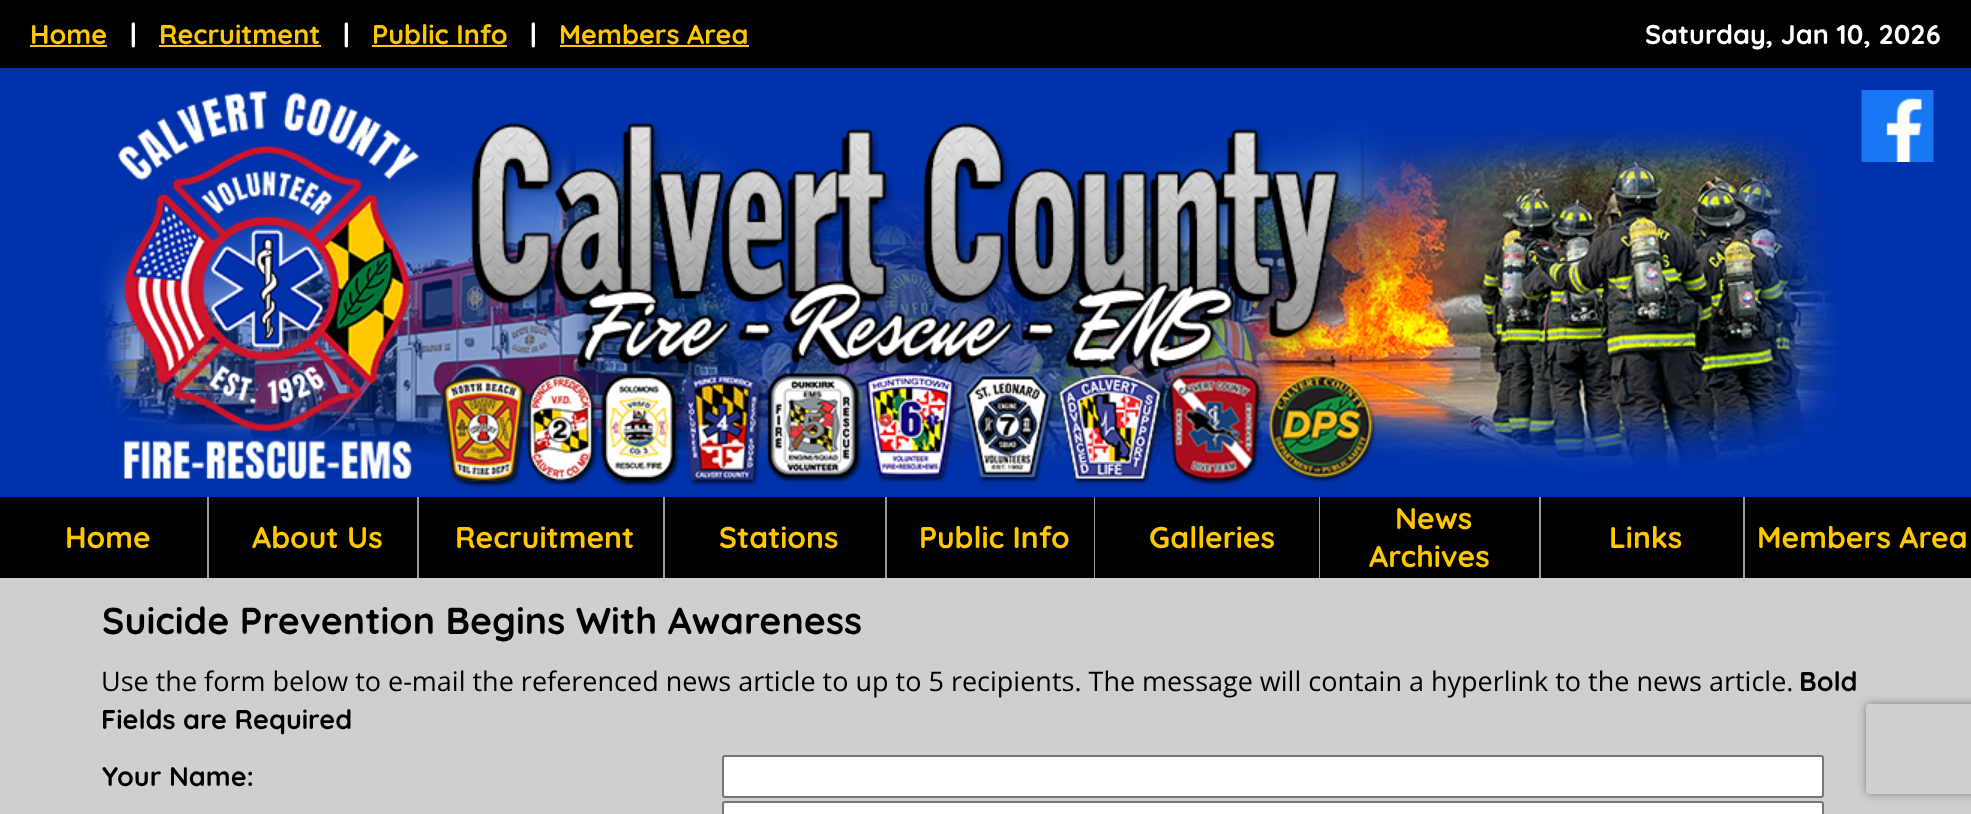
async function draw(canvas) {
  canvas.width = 1971
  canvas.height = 814
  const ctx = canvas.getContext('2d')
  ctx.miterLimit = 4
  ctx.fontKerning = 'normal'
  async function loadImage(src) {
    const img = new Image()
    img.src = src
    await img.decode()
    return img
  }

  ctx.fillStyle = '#cfcfcf'
  ctx.fillRect(0, 0, 1971, 814)
  ctx.fillStyle = '#000'
  ctx.fillRect(0, 0, 1971, 68)
  ctx.font = 'bold 27px Quicksand'
  ctx.fillStyle = '#ffc700'
  ctx.fillText('Home', 30, 44)
  ctx.fillRect(30, 45, 77, 2)
  ctx.fillStyle = '#fff'
  ctx.fillText('|', 130, 44)
  ctx.fillStyle = '#ffc700'
  ctx.fillText('Recruitment', 159, 44)
  ctx.fillRect(159, 45, 162, 2)
  ctx.fillStyle = '#fff'
  ctx.fillText('|', 343, 44)
  ctx.fillStyle = '#ffc700'
  ctx.fillText('Public Info', 372, 44)
  ctx.fillRect(372, 45, 135, 2)
  ctx.fillStyle = '#fff'
  ctx.fillText('|', 530, 44)
  ctx.fillStyle = '#ffc700'
  ctx.fillText('Members Area', 559, 44)
  ctx.fillRect(560, 45, 189, 2)
  ctx.fillStyle = '#fff'
  ctx.fillText('Saturday, Jan 10, 2026', 1645, 44)
  ctx.fillStyle = '#0033ab'
  ctx.fillRect(0, 68, 1971, 429)
  ctx.drawImage(await loadImage('image0.png'), 1861, 90, 73, 72)
  ctx.drawImage(await loadImage('image1.png'), 100, 91, 1738, 397)
  ctx.fillStyle = '#000'
  ctx.fillRect(0, 497, 1971, 81)
  ctx.font = 'bold 30px Quicksand'
  ctx.fillStyle = '#ffc700'
  ctx.fillText('Home', 65, 548)
  ctx.fillStyle = '#999'
  ctx.fillRect(207, 497, 2, 81)
  ctx.fillStyle = '#ffc700'
  ctx.fillText('About Us', 252, 548)
  ctx.fillStyle = '#999'
  ctx.fillRect(417, 497, 2, 81)
  ctx.fillStyle = '#ffc700'
  ctx.fillText('Recruitment', 455, 548)
  ctx.fillStyle = '#999'
  ctx.fillRect(663, 497, 2, 81)
  ctx.fillStyle = '#ffc700'
  ctx.fillText('Stations', 719, 548)
  ctx.fillStyle = '#999'
  ctx.fillRect(885, 497, 2, 81)
  ctx.fillStyle = '#ffc700'
  ctx.fillText('Public Info', 919, 548)
  ctx.fillStyle = '#999'
  ctx.fillRect(1094, 497, 1, 81)
  ctx.fillStyle = '#ffc700'
  ctx.fillText('Galleries', 1149, 548)
  ctx.fillStyle = '#999'
  ctx.fillRect(1319, 497, 1, 81)
  ctx.fillStyle = '#ffc700'
  ctx.fillText('News', 1395, 529)
  ctx.fillText('Archives', 1369, 567)
  ctx.fillStyle = '#999'
  ctx.fillRect(1539, 497, 2, 81)
  ctx.fillStyle = '#ffc700'
  ctx.fillText('Links', 1609, 548)
  ctx.fillStyle = '#999'
  ctx.fillRect(1743, 497, 2, 81)
  ctx.fillStyle = '#ffc700'
  ctx.fillText('Members Area', 1757, 548)
  ctx.font = 'bold 37.5px Quicksand'
  ctx.fillStyle = '#000'
  ctx.fillText('Suicide Prevention Begins With Awareness', 102, 634)
  ctx.font = '27px Open Sans'
  ctx.fillText('Use the form below to e-mail the referenced news article to up to 5 recipients. The message will contain a hyperlink to the news article.', 101, 691)
  ctx.font = 'bold 27px Quicksand'
  ctx.fillText('Bold', 1799, 691)
  ctx.fillText('Fields are Required', 101, 729)
  ctx.fillText('Your Name:', 102, 786)
  ctx.fillStyle = '#fff'
  ctx.beginPath()
  ctx.roundRect(723, 756, 1100, 41, 2)
  ctx.fill()
  ctx.strokeStyle = '#767676'
  ctx.lineWidth = 2
  ctx.stroke()
  ctx.beginPath()
  ctx.roundRect(723, 802, 1100, 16, 2)
  ctx.fill()
  ctx.stroke()
  ctx.save()
  ctx.beginPath()
  ctx.moveTo(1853, 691)
  ctx.lineTo(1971, 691)
  ctx.lineTo(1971, 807)
  ctx.lineTo(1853, 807)
  ctx.closePath()
  ctx.moveTo(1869, 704)
  ctx.lineTo(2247, 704)
  ctx.bezierCurveTo(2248.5, 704, 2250, 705.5, 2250, 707)
  ctx.lineTo(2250, 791)
  ctx.bezierCurveTo(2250, 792.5, 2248.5, 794, 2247, 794)
  ctx.lineTo(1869, 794)
  ctx.bezierCurveTo(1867.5, 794, 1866, 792.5, 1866, 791)
  ctx.lineTo(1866, 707)
  ctx.bezierCurveTo(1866, 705.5, 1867.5, 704, 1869, 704)
  ctx.closePath()
  ctx.clip('evenodd')
  ctx.fillStyle = '#808080'
  ctx.filter = 'blur(4px)'
  ctx.beginPath()
  ctx.roundRect(1866, 704, 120, 90, 3)
  ctx.fill()
  ctx.filter = 'none'
  ctx.restore()
}

draw(document.querySelector('canvas'))
